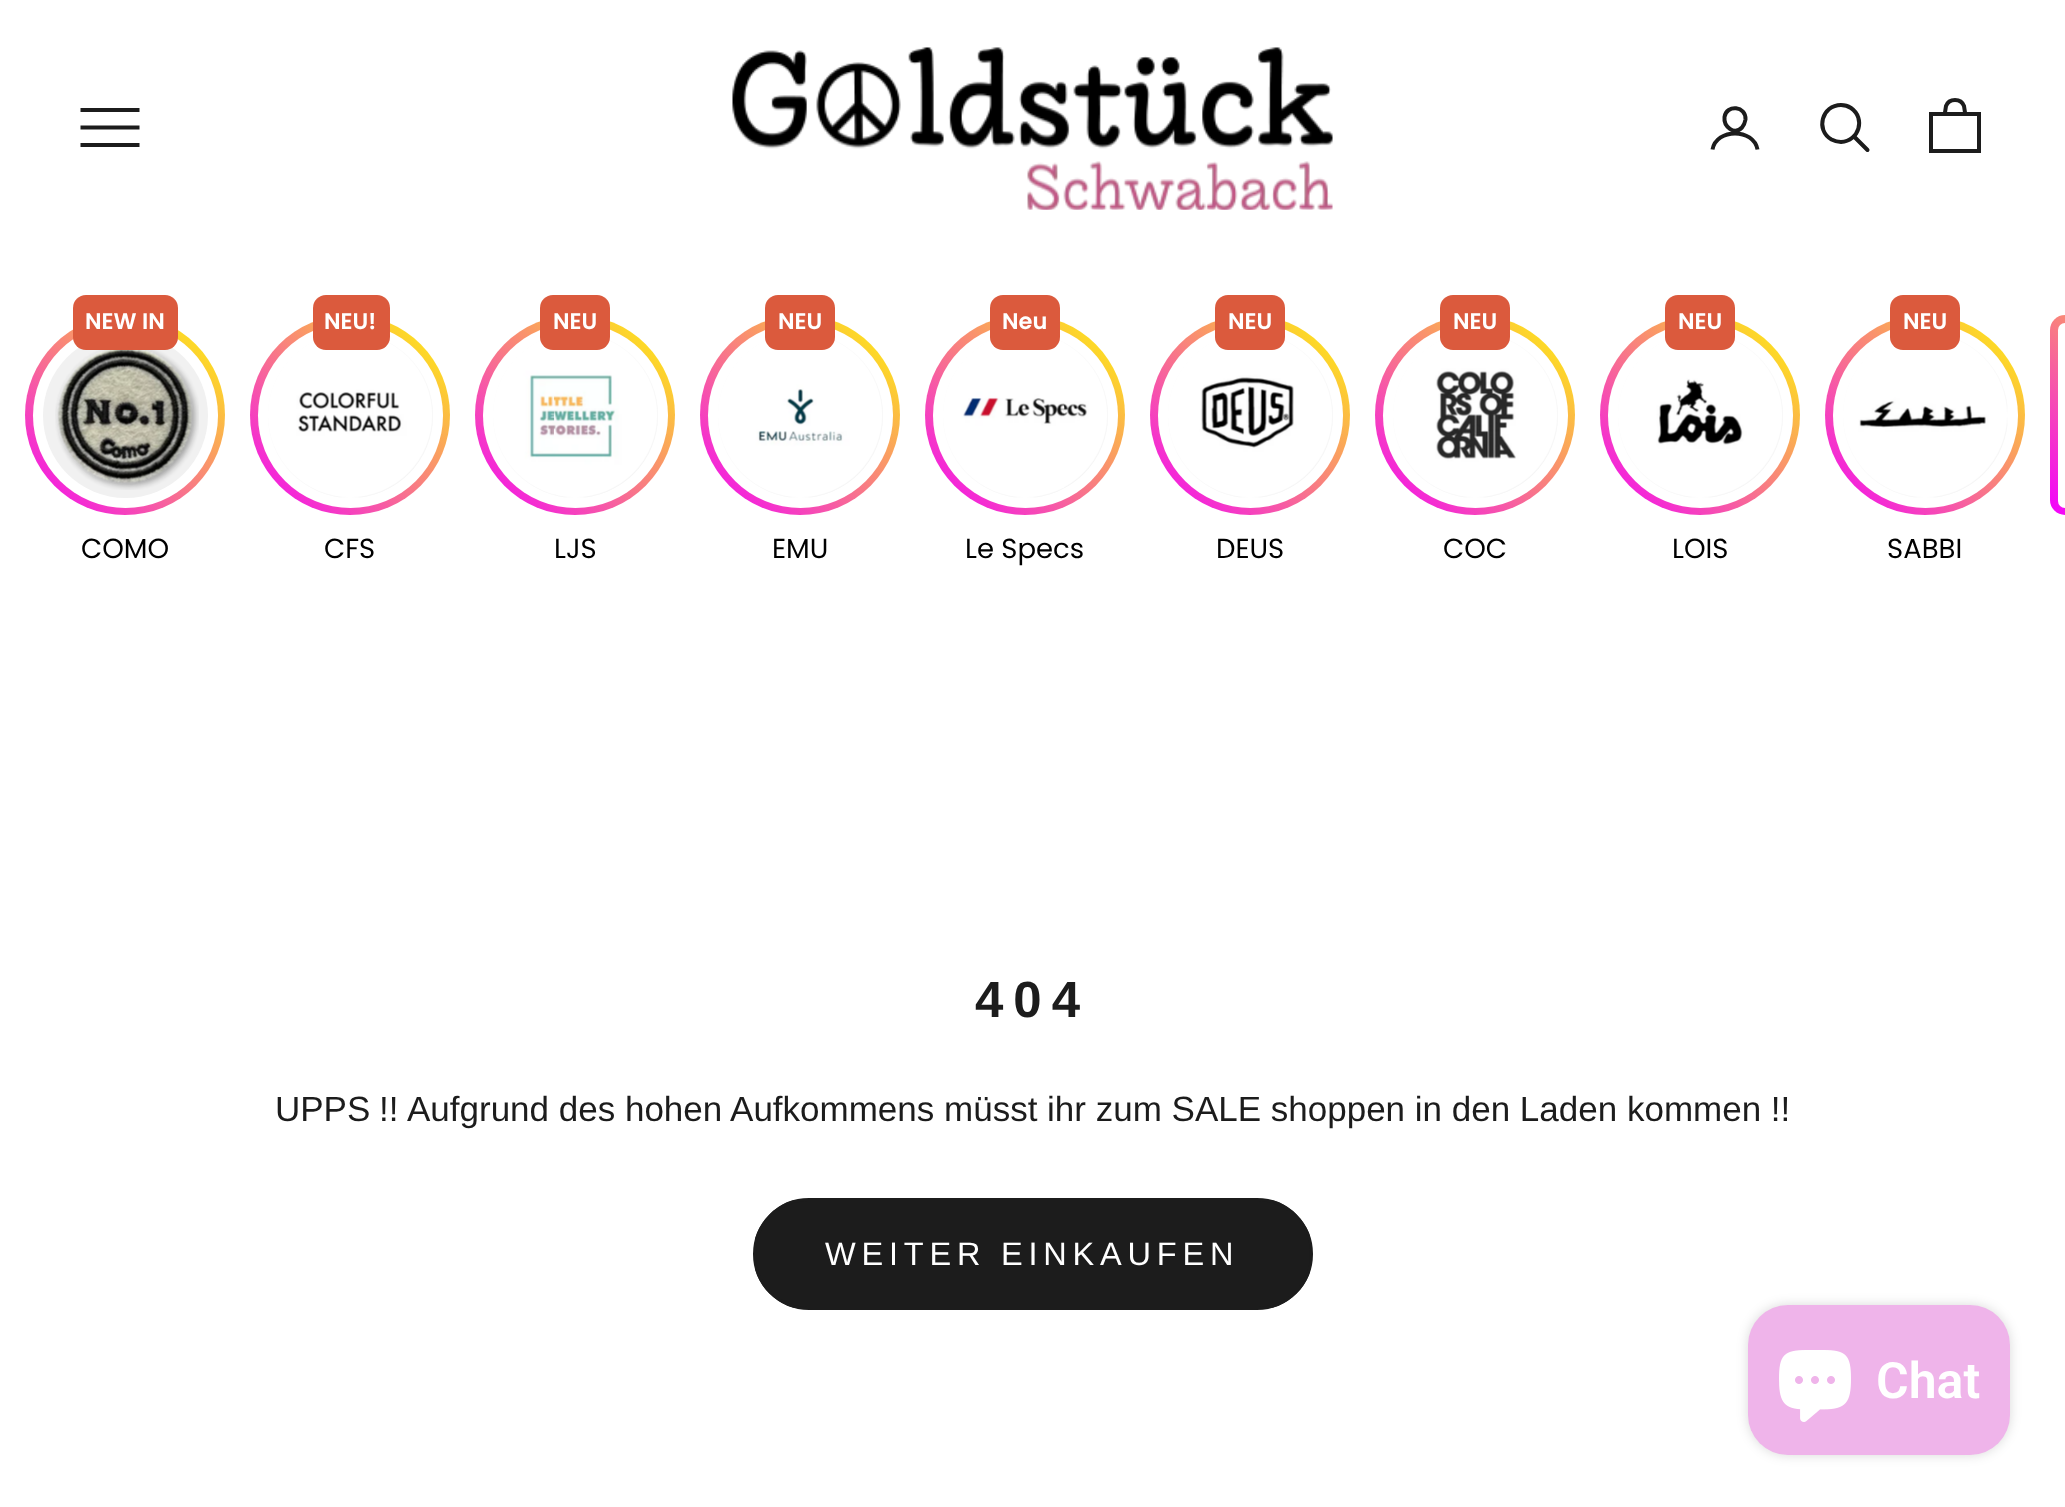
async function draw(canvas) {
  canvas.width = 2065
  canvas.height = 1507
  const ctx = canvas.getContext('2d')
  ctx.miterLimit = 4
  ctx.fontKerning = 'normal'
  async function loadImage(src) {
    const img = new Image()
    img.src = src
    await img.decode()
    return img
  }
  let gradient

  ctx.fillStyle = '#fff'
  ctx.fillRect(0, 0, 2065, 1507)
  ctx.beginPath()
  ctx.moveTo(82.5, 145)
  ctx.lineTo(137.5, 145)
  ctx.moveTo(82.5, 127.5)
  ctx.lineTo(137.5, 127.5)
  ctx.moveTo(82.5, 110)
  ctx.lineTo(137.5, 110)
  ctx.strokeStyle = '#1c1c1c'
  ctx.lineWidth = 4
  ctx.lineCap = 'square'
  ctx.stroke()
  ctx.drawImage(await loadImage('image0.png'), 732, 47, 601, 163)
  ctx.beginPath()
  ctx.moveTo(1745.5, 119.5)
  ctx.bezierCurveTo(1745, 122.5, 1744, 125, 1742, 127.5)
  ctx.bezierCurveTo(1734, 135.5, 1723.5, 126.5, 1724.5, 117)
  ctx.bezierCurveTo(1726.5, 104, 1746.5, 106, 1745.5, 119.5)
  ctx.closePath()
  ctx.lineCap = 'round'
  ctx.lineJoin = 'round'
  ctx.stroke()
  ctx.beginPath()
  ctx.moveTo(1712.5, 149.5)
  ctx.bezierCurveTo(1716.5, 128, 1753.5, 128, 1757.5, 149.5)
  ctx.lineCap = 'butt'
  ctx.lineJoin = 'miter'
  ctx.stroke()
  ctx.beginPath()
  ctx.moveTo(1841, 105)
  ctx.bezierCurveTo(1822, 105, 1815, 130, 1831.5, 139.5)
  ctx.bezierCurveTo(1834.5, 141, 1837.5, 142, 1841, 142)
  ctx.bezierCurveTo(1859, 141, 1866, 118.5, 1851, 108)
  ctx.bezierCurveTo(1848, 106, 1844.5, 105, 1841, 105)
  ctx.closePath()
  ctx.stroke()
  ctx.beginPath()
  ctx.moveTo(1854.5, 137)
  ctx.lineTo(1867.5, 150)
  ctx.lineCap = 'round'
  ctx.stroke()
  ctx.beginPath()
  ctx.moveTo(1979, 151)
  ctx.lineTo(1979, 114)
  ctx.lineTo(1931, 114)
  ctx.lineTo(1931, 151)
  ctx.closePath()
  ctx.moveTo(1945, 112.5)
  ctx.lineTo(1946, 106)
  ctx.bezierCurveTo(1949, 98, 1961, 98, 1964, 106)
  ctx.lineTo(1965, 112.5)
  ctx.lineCap = 'butt'
  ctx.stroke()
  gradient = ctx.createLinearGradient(25, 515, 225, 315)
  gradient.addColorStop(0, '#f200ff')
  gradient.addColorStop(1, '#ff0')
  ctx.fillStyle = gradient
  ctx.beginPath()
  ctx.arc(125, 415, 100, 0, 2 * Math.PI)
  ctx.fill()
  ctx.fillStyle = '#fff'
  ctx.beginPath()
  ctx.arc(125.5, 415.5, 92.5, 0, 2 * Math.PI)
  ctx.fill()
  ctx.fillStyle = '#f1f1f1'
  ctx.beginPath()
  ctx.arc(125.5, 415.5, 82.5, 0, 2 * Math.PI)
  ctx.fill()
  ctx.fillStyle = '#db5a3d'
  ctx.beginPath()
  ctx.roundRect(73, 295, 105, 55, 13)
  ctx.fill()
  ctx.font = '600 22.5px Poppins'
  ctx.fillStyle = '#fff'
  ctx.fillText('NEW IN', 85, 329)
  ctx.drawImage(await loadImage('image1.png'), 55, 350, 144, 140)
  ctx.font = '27.5px Poppins'
  ctx.fillStyle = '#000'
  ctx.fillText('COMO', 81, 558)
  gradient = ctx.createLinearGradient(250, 515, 450, 315)
  gradient.addColorStop(0, '#f200ff')
  gradient.addColorStop(1, '#ff0')
  ctx.fillStyle = gradient
  ctx.beginPath()
  ctx.arc(350, 415, 100, 0, 2 * Math.PI)
  ctx.fill()
  ctx.fillStyle = '#fff'
  ctx.beginPath()
  ctx.arc(350.5, 415.5, 92.5, 0, 2 * Math.PI)
  ctx.fill()
  ctx.fillStyle = '#f1f1f1'
  ctx.beginPath()
  ctx.arc(350.5, 415.5, 82.5, 0, 2 * Math.PI)
  ctx.fill()
  ctx.drawImage(await loadImage('image2.png'), 268, 340, 165, 158)
  ctx.fillStyle = '#db5a3d'
  ctx.beginPath()
  ctx.roundRect(313, 295, 77, 55, 13)
  ctx.fill()
  ctx.font = '600 22.5px Poppins'
  ctx.fillStyle = '#fff'
  ctx.fillText('NEU!', 324, 329)
  ctx.font = '27.5px Poppins'
  ctx.fillStyle = '#000'
  ctx.fillText('CFS', 324, 558)
  gradient = ctx.createLinearGradient(475, 515, 675, 315)
  gradient.addColorStop(0, '#f200ff')
  gradient.addColorStop(1, '#ff0')
  ctx.fillStyle = gradient
  ctx.beginPath()
  ctx.arc(575, 415, 100, 0, 2 * Math.PI)
  ctx.fill()
  ctx.fillStyle = '#fff'
  ctx.beginPath()
  ctx.arc(575.5, 415.5, 92.5, 0, 2 * Math.PI)
  ctx.fill()
  ctx.fillStyle = '#f1f1f1'
  ctx.beginPath()
  ctx.arc(575.5, 415.5, 82.5, 0, 2 * Math.PI)
  ctx.fill()
  ctx.drawImage(await loadImage('image3.png'), 493, 339, 165, 159)
  ctx.fillStyle = '#db5a3d'
  ctx.beginPath()
  ctx.roundRect(540, 295, 70, 55, 13)
  ctx.fill()
  ctx.font = '600 22.5px Poppins'
  ctx.fillStyle = '#fff'
  ctx.fillText('NEU', 553, 329)
  ctx.font = '27.5px Poppins'
  ctx.fillStyle = '#000'
  ctx.fillText('LJS', 554, 558)
  gradient = ctx.createLinearGradient(700, 515, 900, 315)
  gradient.addColorStop(0, '#f200ff')
  gradient.addColorStop(1, '#ff0')
  ctx.fillStyle = gradient
  ctx.beginPath()
  ctx.arc(800, 415, 100, 0, 2 * Math.PI)
  ctx.fill()
  ctx.fillStyle = '#fff'
  ctx.beginPath()
  ctx.arc(800.5, 415.5, 92.5, 0, 2 * Math.PI)
  ctx.fill()
  ctx.fillStyle = '#f1f1f1'
  ctx.beginPath()
  ctx.arc(800.5, 415.5, 82.5, 0, 2 * Math.PI)
  ctx.fill()
  ctx.drawImage(await loadImage('image4.png'), 718, 339, 165, 159)
  ctx.fillStyle = '#db5a3d'
  ctx.beginPath()
  ctx.roundRect(765, 295, 70, 55, 13)
  ctx.fill()
  ctx.font = '600 22.5px Poppins'
  ctx.fillStyle = '#fff'
  ctx.fillText('NEU', 778, 329)
  ctx.font = '27.5px Poppins'
  ctx.fillStyle = '#000'
  ctx.fillText('EMU', 772, 558)
  gradient = ctx.createLinearGradient(925, 515, 1125, 315)
  gradient.addColorStop(0, '#f200ff')
  gradient.addColorStop(1, '#ff0')
  ctx.fillStyle = gradient
  ctx.beginPath()
  ctx.arc(1025, 415, 100, 0, 2 * Math.PI)
  ctx.fill()
  ctx.fillStyle = '#fff'
  ctx.beginPath()
  ctx.arc(1025.5, 415.5, 92.5, 0, 2 * Math.PI)
  ctx.fill()
  ctx.fillStyle = '#f1f1f1'
  ctx.beginPath()
  ctx.arc(1025.5, 415.5, 82.5, 0, 2 * Math.PI)
  ctx.fill()
  ctx.drawImage(await loadImage('image5.png'), 943, 339, 165, 159)
  ctx.fillStyle = '#db5a3d'
  ctx.beginPath()
  ctx.roundRect(990, 295, 70, 55, 13)
  ctx.fill()
  ctx.font = '600 22.5px Poppins'
  ctx.fillStyle = '#fff'
  ctx.fillText('Neu', 1002, 329)
  ctx.font = '27.5px Poppins'
  ctx.fillStyle = '#000'
  ctx.fillText('Le Specs', 965, 558)
  gradient = ctx.createLinearGradient(1150, 515, 1350, 315)
  gradient.addColorStop(0, '#f200ff')
  gradient.addColorStop(1, '#ff0')
  ctx.fillStyle = gradient
  ctx.beginPath()
  ctx.arc(1250, 415, 100, 0, 2 * Math.PI)
  ctx.fill()
  ctx.fillStyle = '#fff'
  ctx.beginPath()
  ctx.arc(1250.5, 415.5, 92.5, 0, 2 * Math.PI)
  ctx.fill()
  ctx.fillStyle = '#f1f1f1'
  ctx.beginPath()
  ctx.arc(1250.5, 415.5, 82.5, 0, 2 * Math.PI)
  ctx.fill()
  ctx.drawImage(await loadImage('image6.png'), 1168, 339, 165, 159)
  ctx.fillStyle = '#db5a3d'
  ctx.beginPath()
  ctx.roundRect(1215, 295, 70, 55, 13)
  ctx.fill()
  ctx.font = '600 22.5px Poppins'
  ctx.fillStyle = '#fff'
  ctx.fillText('NEU', 1228, 329)
  ctx.font = '27.5px Poppins'
  ctx.fillStyle = '#000'
  ctx.fillText('DEUS', 1216, 558)
  gradient = ctx.createLinearGradient(1375, 515, 1575, 315)
  gradient.addColorStop(0, '#f200ff')
  gradient.addColorStop(1, '#ff0')
  ctx.fillStyle = gradient
  ctx.beginPath()
  ctx.arc(1475, 415, 100, 0, 2 * Math.PI)
  ctx.fill()
  ctx.fillStyle = '#fff'
  ctx.beginPath()
  ctx.arc(1475.5, 415.5, 92.5, 0, 2 * Math.PI)
  ctx.fill()
  ctx.fillStyle = '#f1f1f1'
  ctx.beginPath()
  ctx.arc(1475.5, 415.5, 82.5, 0, 2 * Math.PI)
  ctx.fill()
  ctx.drawImage(await loadImage('image7.png'), 1393, 339, 165, 159)
  ctx.fillStyle = '#db5a3d'
  ctx.beginPath()
  ctx.roundRect(1440, 295, 70, 55, 13)
  ctx.fill()
  ctx.font = '600 22.5px Poppins'
  ctx.fillStyle = '#fff'
  ctx.fillText('NEU', 1453, 329)
  ctx.font = '27.5px Poppins'
  ctx.fillStyle = '#000'
  ctx.fillText('COC', 1443, 558)
  gradient = ctx.createLinearGradient(1600, 515, 1800, 315)
  gradient.addColorStop(0, '#f200ff')
  gradient.addColorStop(1, '#ff0')
  ctx.fillStyle = gradient
  ctx.beginPath()
  ctx.arc(1700, 415, 100, 0, 2 * Math.PI)
  ctx.fill()
  ctx.fillStyle = '#fff'
  ctx.beginPath()
  ctx.arc(1700.5, 415.5, 92.5, 0, 2 * Math.PI)
  ctx.fill()
  ctx.fillStyle = '#f1f1f1'
  ctx.beginPath()
  ctx.arc(1700.5, 415.5, 82.5, 0, 2 * Math.PI)
  ctx.fill()
  ctx.drawImage(await loadImage('image8.png'), 1618, 339, 165, 159)
  ctx.fillStyle = '#db5a3d'
  ctx.beginPath()
  ctx.roundRect(1665, 295, 70, 55, 13)
  ctx.fill()
  ctx.font = '600 22.5px Poppins'
  ctx.fillStyle = '#fff'
  ctx.fillText('NEU', 1678, 329)
  ctx.font = '27.5px Poppins'
  ctx.fillStyle = '#000'
  ctx.fillText('LOIS', 1672, 558)
  gradient = ctx.createLinearGradient(1825, 515, 2025, 315)
  gradient.addColorStop(0, '#f200ff')
  gradient.addColorStop(1, '#ff0')
  ctx.fillStyle = gradient
  ctx.beginPath()
  ctx.arc(1925, 415, 100, 0, 2 * Math.PI)
  ctx.fill()
  ctx.fillStyle = '#fff'
  ctx.beginPath()
  ctx.arc(1925.5, 415.5, 92.5, 0, 2 * Math.PI)
  ctx.fill()
  ctx.fillStyle = '#f1f1f1'
  ctx.beginPath()
  ctx.arc(1925.5, 415.5, 82.5, 0, 2 * Math.PI)
  ctx.fill()
  ctx.drawImage(await loadImage('image9.png'), 1843, 339, 165, 159)
  ctx.fillStyle = '#db5a3d'
  ctx.beginPath()
  ctx.roundRect(1890, 295, 70, 55, 13)
  ctx.fill()
  ctx.font = '600 22.5px Poppins'
  ctx.fillStyle = '#fff'
  ctx.fillText('NEU', 1903, 329)
  ctx.font = '27.5px Poppins'
  ctx.fillStyle = '#000'
  ctx.fillText('SABBI', 1887, 558)
  gradient = ctx.createLinearGradient(2050, 515, 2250, 315)
  gradient.addColorStop(0, '#f200ff')
  gradient.addColorStop(1, '#ff0')
  ctx.fillStyle = gradient
  ctx.beginPath()
  ctx.roundRect(2050, 315, 15, 200, [100, 0, 0, 100])
  ctx.fill()
  ctx.fillStyle = '#fff'
  ctx.beginPath()
  ctx.roundRect(2058, 323, 7, 185, [92.5, 0, 0, 92.5])
  ctx.fill()
  ctx.letterSpacing = '10px'
  ctx.font = 'bold 51px Liberation Sans'
  ctx.fillStyle = '#1c1c1c'
  ctx.fillText('404', 975, 1017)
  ctx.letterSpacing = '0px'
  ctx.wordSpacing = '-1px'
  ctx.font = '35px Liberation Sans'
  ctx.fillText('UPPS !!', 275, 1121)
  ctx.wordSpacing = '0px'
  ctx.fillText('Aufgrund des hohen Aufkommens müsst ihr zum SALE shoppen in den Laden kommen !!', 407, 1121)
  ctx.save()
  ctx.beginPath()
  ctx.roundRect(753, 1198, 560, 112, 56)
  ctx.clip()
  ctx.fillRect(755, 1200, 555, 108)
  ctx.restore()
  ctx.beginPath()
  ctx.roundRect(754.5, 1199.5, 557, 109, 54.5)
  ctx.lineWidth = 3
  ctx.stroke()
  ctx.letterSpacing = '5.8px'
  ctx.font = '32.5px Liberation Sans'
  ctx.fillStyle = '#fff'
  ctx.fillText('WEITER EINKAUFEN', 825, 1265)
  ctx.fillStyle = '#00000026'
  ctx.filter = 'blur(6px)'
  ctx.beginPath()
  ctx.roundRect(1748, 1305, 262, 150, 40)
  ctx.fill()
  ctx.filter = 'none'
  ctx.fillStyle = '#efb4ea'
  ctx.beginPath()
  ctx.roundRect(1748, 1305, 262, 150, 40)
  ctx.fill()
  ctx.drawImage(await loadImage('image10.png'), 1779, 1350, 72, 72)
  ctx.letterSpacing = '0px'
  ctx.font = '600 50px Roboto'
  ctx.fillStyle = '#fff'
  ctx.fillText('Chat', 1876, 1398)
}

draw(document.querySelector('canvas'))
